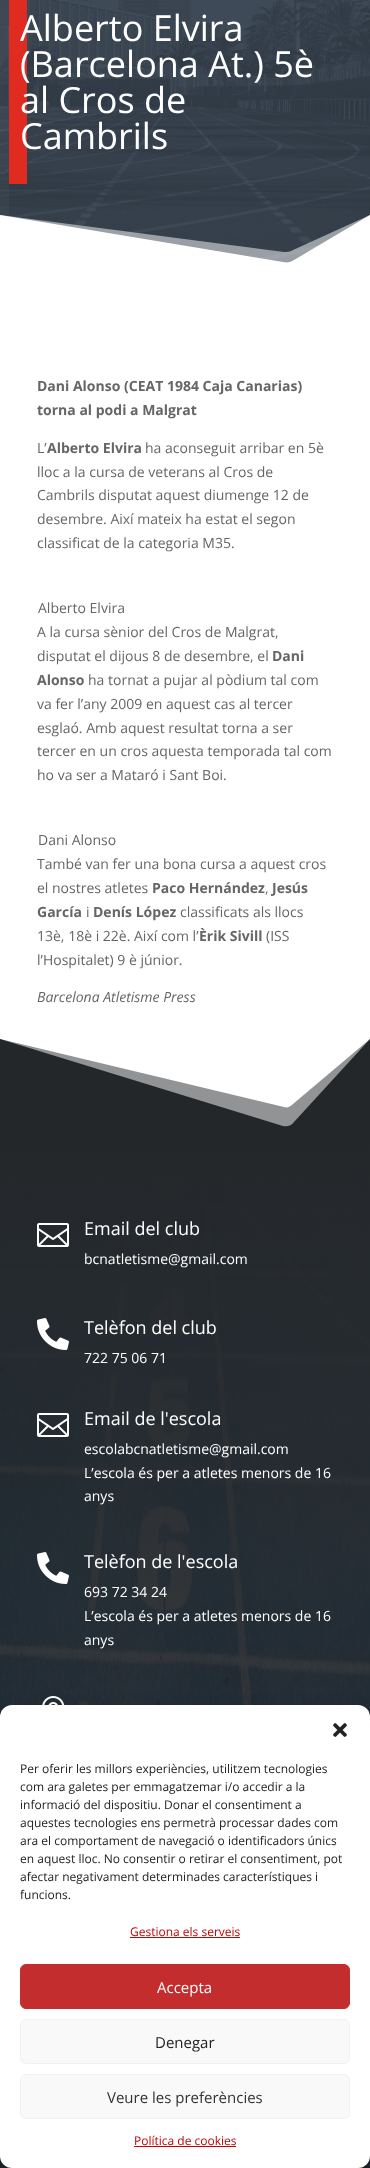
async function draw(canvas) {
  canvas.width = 370
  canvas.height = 2168
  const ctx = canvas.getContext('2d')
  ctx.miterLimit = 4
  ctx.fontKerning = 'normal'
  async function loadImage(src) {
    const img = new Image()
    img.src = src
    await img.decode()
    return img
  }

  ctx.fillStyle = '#fff'
  ctx.fillRect(0, 0, 370, 2168)
  ctx.drawImage(await loadImage('image0.png'), 0, 0, 370, 263)
  ctx.fillStyle = '#ffffff80'
  ctx.beginPath()
  ctx.moveTo(370, 215)
  ctx.lineTo(293, 250)
  ctx.bezierCurveTo(290, 252, 287, 252, 284, 252)
  ctx.lineTo(0, 215)
  ctx.lineTo(0, 269)
  ctx.lineTo(370, 269)
  ctx.closePath()
  ctx.fill()
  ctx.fillStyle = '#fff'
  ctx.beginPath()
  ctx.moveTo(370, 215)
  ctx.lineTo(294, 260)
  ctx.bezierCurveTo(291, 262, 287, 263, 283, 262)
  ctx.lineTo(0, 215)
  ctx.lineTo(0, 269)
  ctx.lineTo(370, 269)
  ctx.closePath()
  ctx.fill()
  ctx.fillStyle = '#ffffff08'
  ctx.fillRect(0, 0, 9, 216)
  ctx.fillStyle = '#e02b20'
  ctx.fillRect(9, 0, 18, 184)
  ctx.font = '36px Open Sans'
  ctx.fillStyle = '#fff'
  ctx.fillText('Alberto Elvira', 20, 41)
  ctx.fillText('(Barcelona At.) 5è', 20, 77)
  ctx.fillText('al Cros de', 20, 113)
  ctx.fillText('Cambrils', 20, 149)
  ctx.font = 'bold 14px Open Sans'
  ctx.fillStyle = '#666'
  ctx.fillText('Dani Alonso (CEAT 1984 Caja Canarias)', 37, 391)
  ctx.fillText('torna al podi a Malgrat', 37, 415)
  ctx.font = '14px Open Sans'
  ctx.fillText('L’', 37, 453)
  ctx.font = 'bold 14px Open Sans'
  ctx.fillText('Alberto Elvira', 47, 453)
  ctx.font = '14px Open Sans'
  ctx.fillText('ha aconseguit arribar en 5è', 145, 453)
  ctx.fillText('lloc a la cursa de veterans al Cros de', 37, 477)
  ctx.fillText('Cambrils disputat aquest diumenge 12 de', 37, 500)
  ctx.fillText('desembre. Així mateix ha estat el segon', 37, 524)
  ctx.fillText('classificat de la categoria M35.', 37, 548)
  ctx.fillText('Alberto Elvira', 38, 613)
  ctx.fillText('A la cursa sènior del Cros de Malgrat,', 37, 637)
  ctx.fillText('disputat el dijous 8 de desembre, el', 37, 661)
  ctx.font = 'bold 14px Open Sans'
  ctx.fillText('Dani', 272, 661)
  ctx.fillText('Alonso', 37, 685)
  ctx.font = '14px Open Sans'
  ctx.fillText('ha tornat a pujar al pòdium tal com', 88, 685)
  ctx.fillText('va fer l’any 2009 en aquest cas al tercer', 37, 709)
  ctx.fillText('esglaó. Amb aquest resultat torna a ser', 37, 733)
  ctx.fillText('tercer en un cros aquesta temporada tal com', 37, 756)
  ctx.fillText('ho va ser a Mataró i Sant Boi.', 37, 780)
  ctx.fillText('Dani Alonso', 38, 845)
  ctx.fillText('També van fer una bona cursa a aquest cros', 37, 869)
  ctx.fillText('el nostres atletes', 37, 893)
  ctx.font = 'bold 14px Open Sans'
  ctx.fillText('Paco Hernández', 152, 893)
  ctx.font = '14px Open Sans'
  ctx.fillText(',', 265, 893)
  ctx.font = 'bold 14px Open Sans'
  ctx.fillText('Jesús', 272, 893)
  ctx.fillText('García', 37, 917)
  ctx.font = '14px Open Sans'
  ctx.fillText('i', 86, 917)
  ctx.font = 'bold 14px Open Sans'
  ctx.fillText('Denís López', 93, 917)
  ctx.font = '14px Open Sans'
  ctx.fillText('classificats als llocs', 180, 917)
  ctx.fillText('13è, 18è i 22è. Així com l’', 37, 941)
  ctx.font = 'bold 14px Open Sans'
  ctx.fillText('Èrik Sivill', 199, 941)
  ctx.font = '14px Open Sans'
  ctx.fillText('(ISS', 266, 941)
  ctx.fillText('l’Hospitalet) 9 è júnior.', 37, 965)
  ctx.font = 'italic 14px Open Sans'
  ctx.fillText('Barcelona Atletisme Press', 37, 1002)
  ctx.fillStyle = '#929395'
  ctx.beginPath()
  ctx.moveTo(370, 1039)
  ctx.lineTo(293, 1104)
  ctx.bezierCurveTo(290, 1107, 287, 1108, 284, 1107)
  ctx.lineTo(0, 1039)
  ctx.lineTo(0, 1139)
  ctx.lineTo(370, 1139)
  ctx.closePath()
  ctx.fill()
  ctx.fillStyle = '#24272a'
  ctx.beginPath()
  ctx.moveTo(370, 1039)
  ctx.lineTo(294, 1122)
  ctx.bezierCurveTo(291, 1126, 287, 1127, 283, 1126)
  ctx.lineTo(0, 1039)
  ctx.lineTo(0, 1139)
  ctx.lineTo(370, 1139)
  ctx.closePath()
  ctx.fill()
  ctx.drawImage(await loadImage('image1.png'), 0, 1139, 370, 1029)
  ctx.drawImage(await loadImage('image2.png'), 37, 1223, 32, 24)
  ctx.font = '18px Open Sans'
  ctx.fillStyle = '#fff'
  ctx.fillText('Email del club', 84, 1235)
  ctx.font = '14px Open Sans'
  ctx.fillText('bcnatletisme@gmail.com', 84, 1264)
  ctx.drawImage(await loadImage('image3.png'), 37, 1318, 32, 32)
  ctx.font = '18px Open Sans'
  ctx.fillText('Telèfon del club', 84, 1334)
  ctx.font = '14px Open Sans'
  ctx.fillText('722 75 06 71', 84, 1363)
  ctx.drawImage(await loadImage('image4.png'), 37, 1413, 32, 24)
  ctx.font = '18px Open Sans'
  ctx.fillText('Email de l\'escola', 84, 1425)
  ctx.font = '14px Open Sans'
  ctx.fillText('escolabcnatletisme@gmail.com', 84, 1454)
  ctx.fillText('L’escola és per a atletes menors de 16', 84, 1478)
  ctx.fillText('anys', 84, 1501)
  ctx.drawImage(await loadImage('image5.png'), 37, 1552, 32, 32)
  ctx.font = '18px Open Sans'
  ctx.fillText('Telèfon de l\'escola', 84, 1568)
  ctx.font = '14px Open Sans'
  ctx.fillText('693 72 34 24', 84, 1597)
  ctx.fillText('L’escola és per a atletes menors de 16', 84, 1621)
  ctx.fillText('anys', 84, 1645)
  ctx.drawImage(await loadImage('image6.png'), 42, 1696, 23, 9)
  ctx.fillStyle = '#0000003b'
  ctx.filter = 'blur(3px)'
  ctx.beginPath()
  ctx.roundRect(0, 1711, 370, 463, 12)
  ctx.fill()
  ctx.filter = 'none'
  ctx.fillStyle = '#00000030'
  ctx.filter = 'blur(10px)'
  ctx.beginPath()
  ctx.roundRect(0, 1715, 370, 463, 12)
  ctx.fill()
  ctx.filter = 'none'
  ctx.fillStyle = '#fff'
  ctx.beginPath()
  ctx.roundRect(0, 1705, 370, 463, 12)
  ctx.fill()
  ctx.drawImage(await loadImage('image7.png'), 333, 1723, 14, 14)
  ctx.font = '12px Open Sans'
  ctx.fillStyle = '#222'
  ctx.fillText('Per oferir les millors experiències, utilitzem tecnologies', 20, 1773)
  ctx.fillText('com ara galetes per emmagatzemar i/o accedir a la', 20, 1791)
  ctx.fillText('informació del dispositiu. Donar el consentiment a', 20, 1809)
  ctx.fillText('aquestes tecnologies ens permetrà processar dades com', 20, 1827)
  ctx.fillText('ara el comportament de navegació o identificadors únics', 20, 1845)
  ctx.fillText('en aquest lloc. No consentir o retirar el consentiment, pot', 20, 1863)
  ctx.fillText('afectar negativament determinades característiques i', 20, 1881)
  ctx.fillText('funcions.', 20, 1899)
  ctx.fillStyle = '#bf0505'
  ctx.fillText('Gestiona els serveis', 130, 1936)
  ctx.fillRect(130, 1937, 110, 1)
  ctx.fillStyle = '#c42d2d'
  ctx.beginPath()
  ctx.roundRect(20.5, 1964.5, 329, 44, 5.5)
  ctx.fill()
  ctx.strokeStyle = '#c42d2d'
  ctx.stroke()
  ctx.font = '15px Open Sans'
  ctx.fillStyle = '#fff'
  ctx.fillText('Accepta', 157, 1993)
  ctx.fillStyle = '#f9f9f9'
  ctx.beginPath()
  ctx.roundRect(20.5, 2019.5, 329, 44, 5.5)
  ctx.fill()
  ctx.strokeStyle = '#f2f2f2'
  ctx.stroke()
  ctx.fillStyle = '#222'
  ctx.fillText('Denegar', 155, 2048)
  ctx.fillStyle = '#f9f9f9'
  ctx.beginPath()
  ctx.roundRect(20.5, 2074.5, 329, 44, 5.5)
  ctx.fill()
  ctx.stroke()
  ctx.fillStyle = '#333'
  ctx.fillText('Veure les preferències', 107, 2103)
  ctx.font = '12px Open Sans'
  ctx.fillStyle = '#bf0505'
  ctx.fillText('Política de cookies', 134, 2145)
  ctx.fillRect(134, 2146, 102, 1)
}

draw(document.querySelector('canvas'))
